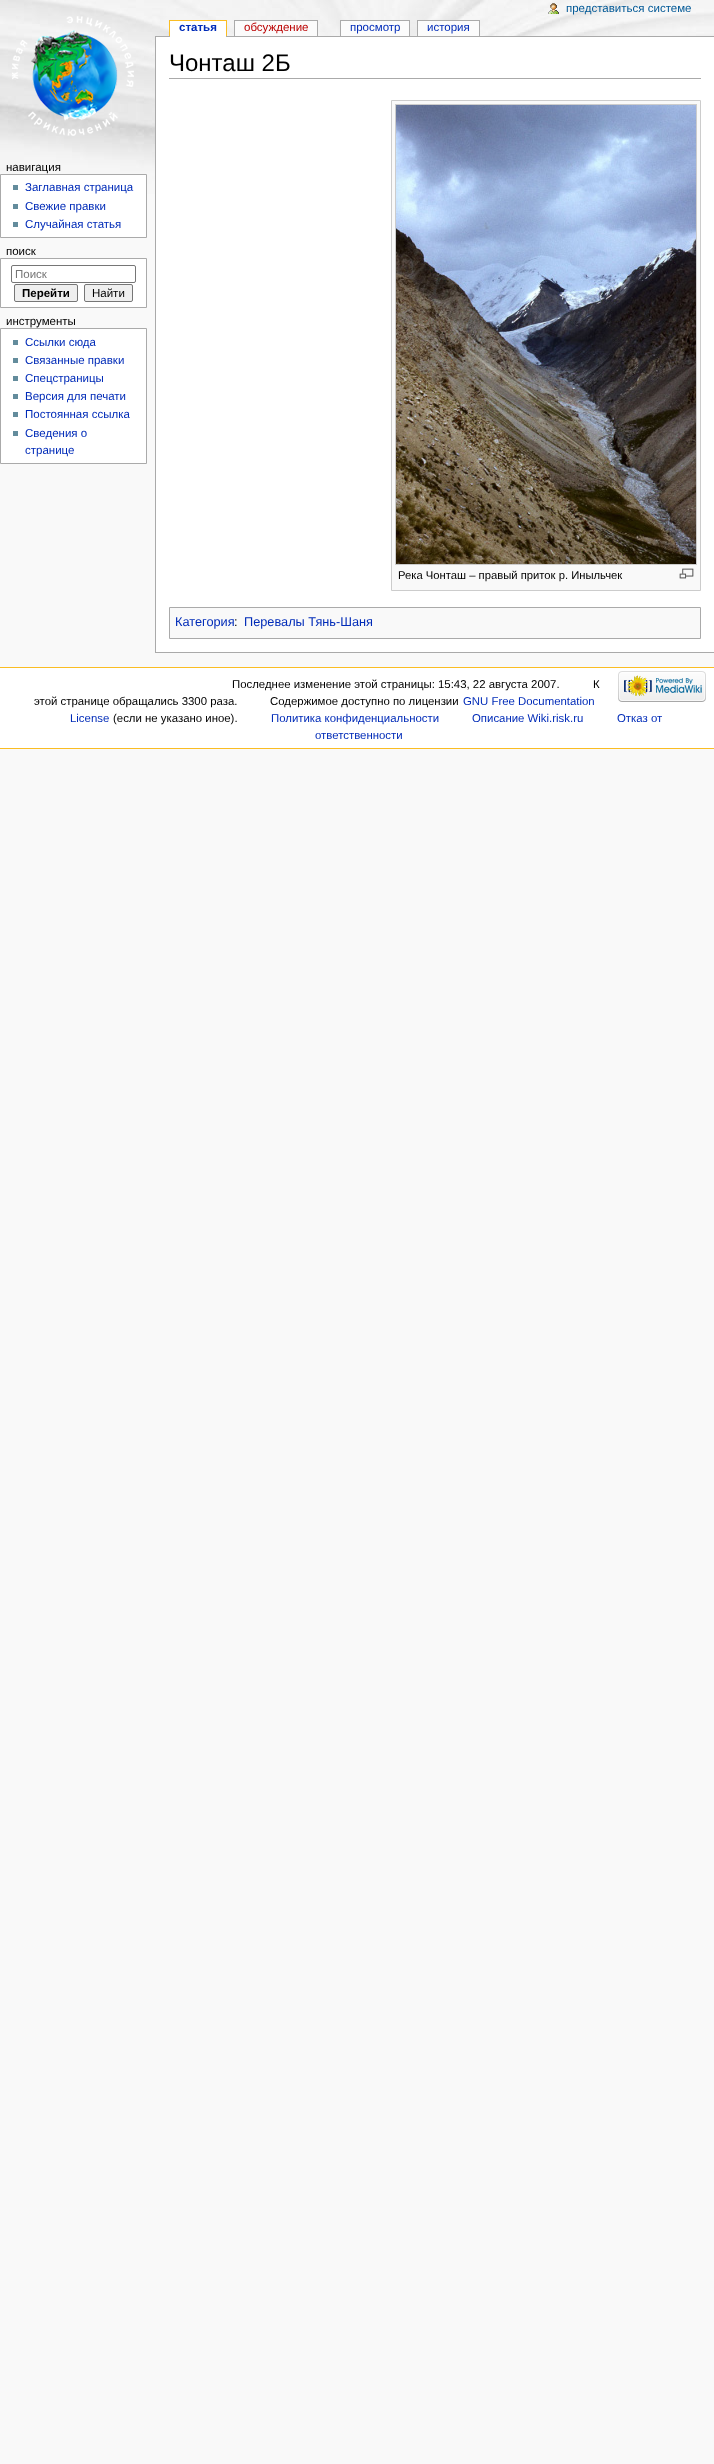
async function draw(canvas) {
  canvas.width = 714
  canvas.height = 2464
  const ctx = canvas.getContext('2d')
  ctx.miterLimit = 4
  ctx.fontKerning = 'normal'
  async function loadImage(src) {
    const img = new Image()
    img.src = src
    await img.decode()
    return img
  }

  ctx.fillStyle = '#f9f9f9'
  ctx.fillRect(0, 0, 714, 2464)
  ctx.drawImage(await loadImage('image0.png'), 0, 0, 714, 194)
  ctx.drawImage(await loadImage('image1.png'), 548, 3, 11, 11)
  ctx.font = '11.5px Liberation Sans'
  ctx.fillStyle = '#005896'
  ctx.fillText('представиться системе', 566, 12)
  ctx.drawImage(await loadImage('image2.png'), 12, 16, 122, 120)
  ctx.fillStyle = '#aaa'
  ctx.fillRect(155, 36, 559, 1)
  ctx.fillStyle = '#fff'
  ctx.fillRect(170, 21, 56, 16)
  ctx.font = 'bold 11.5px Liberation Sans'
  ctx.fillStyle = '#002bb8'
  ctx.fillText('статья', 179, 31)
  ctx.fillStyle = '#fabd23'
  ctx.fillRect(169, 20, 58, 1)
  ctx.fillRect(226, 20, 1, 16)
  ctx.fillRect(169, 20, 1, 16)
  ctx.fillStyle = '#fbfbfb'
  ctx.fillRect(235, 21, 82, 15)
  ctx.font = '11.5px Liberation Sans'
  ctx.fillStyle = '#ba0000'
  ctx.fillText('обсуждение', 244, 31)
  ctx.fillStyle = '#aaa'
  ctx.fillRect(234, 20, 84, 1)
  ctx.fillRect(317, 20, 1, 16)
  ctx.fillRect(234, 20, 1, 16)
  ctx.fillStyle = '#fbfbfb'
  ctx.fillRect(341, 21, 68, 15)
  ctx.fillStyle = '#002bb8'
  ctx.fillText('просмотр', 350, 31)
  ctx.fillStyle = '#aaa'
  ctx.fillRect(340, 20, 70, 1)
  ctx.fillRect(409, 20, 1, 16)
  ctx.fillRect(340, 20, 1, 16)
  ctx.fillStyle = '#fbfbfb'
  ctx.fillRect(418, 21, 61, 15)
  ctx.fillStyle = '#002bb8'
  ctx.fillText('история', 427, 31)
  ctx.fillStyle = '#aaa'
  ctx.fillRect(417, 20, 63, 1)
  ctx.fillRect(479, 20, 1, 16)
  ctx.fillRect(417, 20, 1, 16)
  ctx.fillStyle = '#000'
  ctx.fillText('навигация', 6, 171)
  ctx.fillStyle = '#fff'
  ctx.beginPath()
  ctx.rect(0.5, 174.5, 146, 63)
  ctx.fill()
  ctx.strokeStyle = '#aaa'
  ctx.stroke()
  ctx.fillStyle = '#638c9c'
  ctx.fillRect(13, 185, 5, 5)
  ctx.fillStyle = '#002bb8'
  ctx.fillText('Заглавная страница', 25, 191)
  ctx.fillStyle = '#638c9c'
  ctx.fillRect(13, 204, 5, 5)
  ctx.fillStyle = '#002bb8'
  ctx.fillText('Свежие правки', 25, 210)
  ctx.fillStyle = '#638c9c'
  ctx.fillRect(13, 222, 5, 5)
  ctx.fillStyle = '#002bb8'
  ctx.fillText('Случайная статья', 25, 228)
  ctx.fillStyle = '#000'
  ctx.fillText('поиск', 6, 255)
  ctx.fillStyle = '#fff'
  ctx.beginPath()
  ctx.rect(0.5, 258.5, 146, 49)
  ctx.fill()
  ctx.stroke()
  ctx.beginPath()
  ctx.roundRect(11.5, 265.5, 124, 17, 1.5)
  ctx.strokeStyle = '#767676'
  ctx.stroke()
  ctx.fillStyle = '#757575'
  ctx.fillText('Поиск', 15, 278)
  ctx.fillStyle = '#efefef'
  ctx.beginPath()
  ctx.roundRect(14.5, 284.5, 63, 17, 1.5)
  ctx.fill()
  ctx.stroke()
  ctx.font = 'bold 11.5px Liberation Sans'
  ctx.fillStyle = '#000'
  ctx.fillText('Перейти', 22, 297)
  ctx.fillStyle = '#efefef'
  ctx.beginPath()
  ctx.roundRect(84.5, 284.5, 48, 17, 1.5)
  ctx.fill()
  ctx.stroke()
  ctx.font = '11.5px Liberation Sans'
  ctx.fillStyle = '#000'
  ctx.fillText('Найти', 92, 297)
  ctx.fillText('инструменты', 6, 325)
  ctx.fillStyle = '#fff'
  ctx.beginPath()
  ctx.rect(0.5, 328.5, 146, 135)
  ctx.fill()
  ctx.strokeStyle = '#aaa'
  ctx.stroke()
  ctx.fillStyle = '#638c9c'
  ctx.fillRect(13, 340, 5, 5)
  ctx.fillStyle = '#002bb8'
  ctx.fillText('Ссылки сюда', 25, 346)
  ctx.fillStyle = '#638c9c'
  ctx.fillRect(13, 358, 5, 5)
  ctx.fillStyle = '#002bb8'
  ctx.fillText('Связанные правки', 25, 364)
  ctx.fillStyle = '#638c9c'
  ctx.fillRect(13, 376, 5, 5)
  ctx.fillStyle = '#002bb8'
  ctx.fillText('Спецстраницы', 25, 382)
  ctx.fillStyle = '#638c9c'
  ctx.fillRect(13, 394, 5, 5)
  ctx.fillStyle = '#002bb8'
  ctx.fillText('Версия для печати', 25, 400)
  ctx.fillStyle = '#638c9c'
  ctx.fillRect(13, 412, 5, 5)
  ctx.fillStyle = '#002bb8'
  ctx.fillText('Постоянная ссылка', 25, 418)
  ctx.fillStyle = '#638c9c'
  ctx.fillRect(13, 431, 5, 5)
  ctx.fillStyle = '#002bb8'
  ctx.fillText('Сведения о', 25, 437)
  ctx.fillText('странице', 25, 454)
  ctx.fillStyle = '#fff'
  ctx.fillRect(156, 37, 558, 615)
  ctx.fillStyle = '#aaa'
  ctx.fillRect(155, 652, 559, 1)
  ctx.fillRect(155, 36, 1, 617)
  ctx.fillRect(169, 78, 532, 1)
  ctx.font = '24px Liberation Sans'
  ctx.fillStyle = '#000'
  ctx.fillText('Чонташ 2Б', 169, 71)
  ctx.fillStyle = '#f9f9f9'
  ctx.beginPath()
  ctx.rect(391.5, 100.5, 309, 490)
  ctx.fill()
  ctx.strokeStyle = '#ccc'
  ctx.stroke()
  ctx.strokeRect(395.5, 104.5, 301, 460)
  ctx.drawImage(await loadImage('image3.png'), 396, 105, 300, 459)
  ctx.font = '11.25px Liberation Sans'
  ctx.fillStyle = '#000'
  ctx.fillText('Река Чонташ – правый приток р. Иныльчек', 398, 579)
  ctx.drawImage(await loadImage('image4.png'), 679, 568, 15, 11)
  ctx.fillStyle = '#f9f9f9'
  ctx.beginPath()
  ctx.rect(169.5, 607.5, 531, 31)
  ctx.fill()
  ctx.strokeStyle = '#aaa'
  ctx.stroke()
  ctx.font = '12.75px Liberation Sans'
  ctx.fillStyle = '#002bb8'
  ctx.fillText('Категория', 175, 626)
  ctx.fillStyle = '#000'
  ctx.fillText(':', 234, 626)
  ctx.fillStyle = '#002bb8'
  ctx.fillText('Перевалы Тянь-Шаня', 244, 626)
  ctx.fillStyle = '#fff'
  ctx.fillRect(0, 668, 714, 80)
  ctx.fillStyle = '#fabd23'
  ctx.fillRect(0, 667, 714, 1)
  ctx.fillRect(0, 748, 714, 1)
  ctx.drawImage(await loadImage('image5.png'), 618, 671, 88, 31)
  ctx.font = '11.4px Liberation Sans'
  ctx.fillStyle = '#000'
  ctx.fillText('Последнее изменение этой страницы: 15:43, 22 августа 2007.', 232, 688)
  ctx.fillText('К', 593, 688)
  ctx.fillText('этой странице обращались 3300 раза.', 34, 705)
  ctx.fillText('Содержимое доступно по лицензии', 270, 705)
  ctx.fillStyle = '#002bb8'
  ctx.fillText('GNU Free Documentation', 463, 705)
  ctx.fillText('License', 70, 722)
  ctx.fillStyle = '#000'
  ctx.fillText('(если не указано иное).', 113, 722)
  ctx.fillStyle = '#002bb8'
  ctx.fillText('Политика конфиденциальности', 271, 722)
  ctx.fillText('Описание Wiki.risk.ru', 472, 722)
  ctx.fillText('Отказ от', 617, 722)
  ctx.fillText('ответственности', 315, 739)
}

draw(document.querySelector('canvas'))
